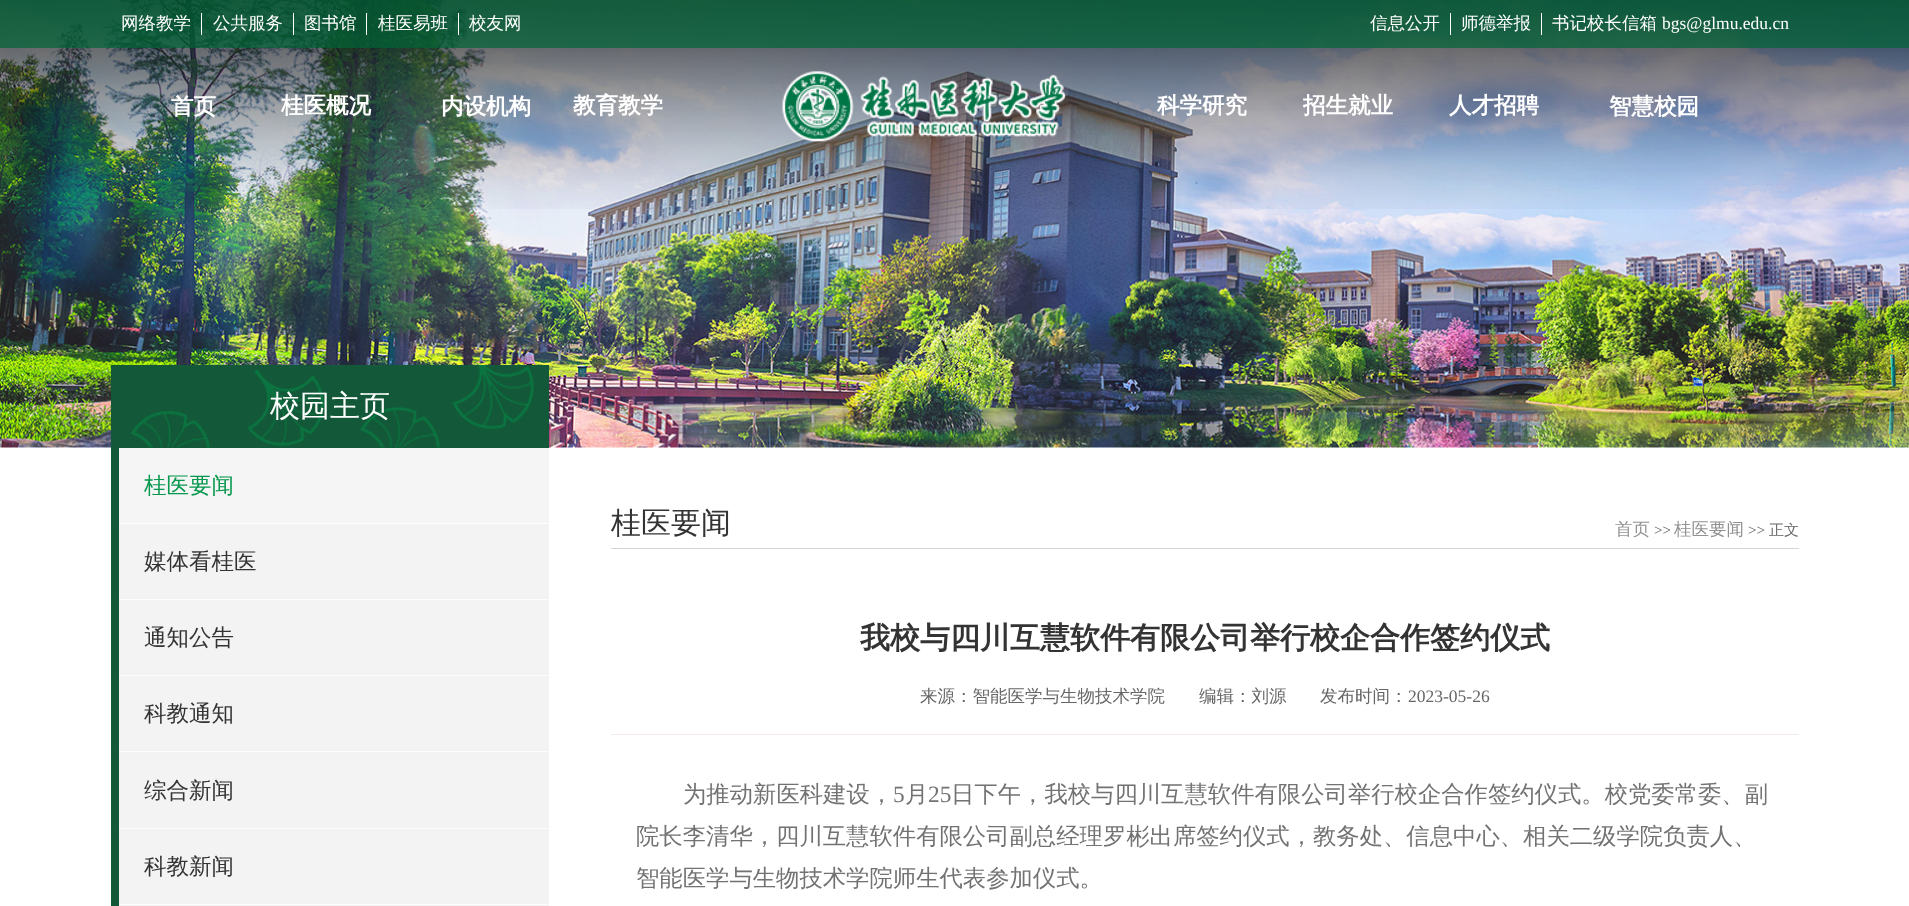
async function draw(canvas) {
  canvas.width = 1909
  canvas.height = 906
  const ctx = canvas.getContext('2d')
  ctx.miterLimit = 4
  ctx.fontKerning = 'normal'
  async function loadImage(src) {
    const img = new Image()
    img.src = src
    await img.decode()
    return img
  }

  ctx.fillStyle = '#fff'
  ctx.fillRect(0, 0, 1909, 906)
  ctx.drawImage(await loadImage('image0.png'), 0, 0, 1909, 448)
  ctx.drawImage(await loadImage('image1.png'), 0, 0, 1909, 209)
  ctx.fillStyle = '#006538b3'
  ctx.fillRect(0, 0, 1909, 48)
  ctx.fillStyle = '#fff'
  ctx.fillRect(201, 13, 1, 22)
  ctx.font = '500 17.5px WenQuanYi Zen Hei'
  ctx.fillText('网络教学', 121, 29)
  ctx.fillRect(293, 13, 1, 22)
  ctx.fillText('公共服务', 213, 29)
  ctx.fillRect(366, 13, 1, 22)
  ctx.fillText('图书馆', 304, 29)
  ctx.fillRect(458, 13, 1, 22)
  ctx.fillText('桂医易班', 378, 29)
  ctx.fillText('校友网', 469, 29)
  ctx.fillRect(1450, 13, 1, 22)
  ctx.fillText('信息公开', 1370, 29)
  ctx.fillRect(1541, 13, 1, 22)
  ctx.fillText('师德举报', 1461, 29)
  ctx.fillText('书记校长信箱', 1552, 29)
  ctx.font = '17.5px Liberation Serif'
  ctx.fillText('bgs@glmu.edu.cn', 1662, 29)
  ctx.font = 'bold 22.5px WenQuanYi Zen Hei'
  ctx.fillText('首页', 171, 114)
  ctx.fillText('桂医概况', 281, 113)
  ctx.fillText('内设机构', 441, 114)
  ctx.fillText('教育教学', 573, 113)
  ctx.drawImage(await loadImage('image2.png'), 782, 71, 284, 71)
  ctx.fillText('科学研究', 1157, 113)
  ctx.fillText('招生就业', 1303, 113)
  ctx.fillText('人才招聘', 1449, 113)
  ctx.fillText('智慧校园', 1609, 114)
  ctx.fillStyle = '#f3f3f3'
  ctx.fillRect(119, 524, 430, 382)
  ctx.fillStyle = '#135939'
  ctx.fillRect(111, 365, 438, 83)
  ctx.drawImage(await loadImage('image3.png'), 131, 365, 403, 83)
  ctx.font = '500 30px WenQuanYi Zen Hei'
  ctx.fillStyle = '#fff'
  ctx.fillText('校园主页', 270, 416)
  ctx.fillStyle = '#135939'
  ctx.fillRect(111, 448, 8, 458)
  ctx.fillStyle = '#f5f5f5'
  ctx.fillRect(119, 448, 430, 75)
  ctx.font = '500 22.5px WenQuanYi Zen Hei'
  ctx.fillStyle = '#07984d'
  ctx.fillText('桂医要闻', 144, 493)
  ctx.fillStyle = '#fdfdfd'
  ctx.fillRect(119, 599, 430, 1)
  ctx.fillStyle = '#333'
  ctx.fillText('媒体看桂医', 144, 569)
  ctx.fillStyle = '#fdfdfd'
  ctx.fillRect(119, 675, 430, 1)
  ctx.fillStyle = '#333'
  ctx.fillText('通知公告', 144, 645)
  ctx.fillStyle = '#fdfdfd'
  ctx.fillRect(119, 751, 430, 1)
  ctx.fillStyle = '#333'
  ctx.fillText('科教通知', 144, 721)
  ctx.fillStyle = '#fdfdfd'
  ctx.fillRect(119, 828, 430, 1)
  ctx.fillStyle = '#333'
  ctx.fillText('综合新闻', 144, 798)
  ctx.fillStyle = '#fdfdfd'
  ctx.fillRect(119, 904, 430, 1)
  ctx.fillStyle = '#333'
  ctx.fillText('科教新闻', 144, 874)
  ctx.fillStyle = '#d6d6d6'
  ctx.fillRect(611, 548, 1188, 1)
  ctx.font = '500 30px WenQuanYi Zen Hei'
  ctx.fillStyle = '#333'
  ctx.fillText('桂医要闻', 611, 533)
  ctx.font = '500 17.5px WenQuanYi Zen Hei'
  ctx.fillStyle = '#919191'
  ctx.fillText('首页', 1615, 535)
  ctx.font = '15px Liberation Serif'
  ctx.fillStyle = '#666'
  ctx.fillText('>>', 1654, 535)
  ctx.font = '500 17.5px WenQuanYi Zen Hei'
  ctx.fillStyle = '#919191'
  ctx.fillText('桂医要闻', 1674, 535)
  ctx.font = '15px Liberation Serif'
  ctx.fillStyle = '#666'
  ctx.fillText('>>', 1748, 535)
  ctx.font = '500 15px WenQuanYi Zen Hei'
  ctx.fillText('正文', 1769, 535)
  ctx.fillStyle = '#f2eaeb'
  ctx.fillRect(611, 734, 1188, 1)
  ctx.font = 'bold 30px WenQuanYi Zen Hei'
  ctx.fillStyle = '#333'
  ctx.fillText('我校与四川互慧软件有限公司举行校企合作签约仪式', 860, 648)
  ctx.font = '500 17.5px WenQuanYi Zen Hei'
  ctx.fillStyle = '#666'
  ctx.fillText('来源：智能医学与生物技术学院', 920, 702)
  ctx.fillText('编辑：刘源', 1199, 702)
  ctx.fillText('发布时间：', 1320, 702)
  ctx.font = '17.5px Liberation Serif'
  ctx.fillText('2023-05-26', 1408, 702)
  ctx.font = '500 23.35px WenQuanYi Zen Hei'
  ctx.fillStyle = '#727272'
  ctx.fillText('为推动新医科建设，', 683, 802)
  ctx.font = '23.35px Liberation Serif'
  ctx.fillText('5', 893, 802)
  ctx.font = '500 23.35px WenQuanYi Zen Hei'
  ctx.fillText('月', 905, 802)
  ctx.font = '23.35px Liberation Serif'
  ctx.fillText('25', 928, 802)
  ctx.font = '500 23.35px WenQuanYi Zen Hei'
  ctx.fillText('日下午，我校与四川互慧软件有限公司举行校企合作签约仪式。校党委常委、副', 951, 802)
  ctx.fillText('院长李清华，四川互慧软件有限公司副总经理罗彬出席签约仪式，教务处、信息中心、相关二级学院负责人、', 636, 844)
  ctx.fillText('智能医学与生物技术学院师生代表参加仪式。', 636, 886)
}

draw(document.querySelector('canvas'))
